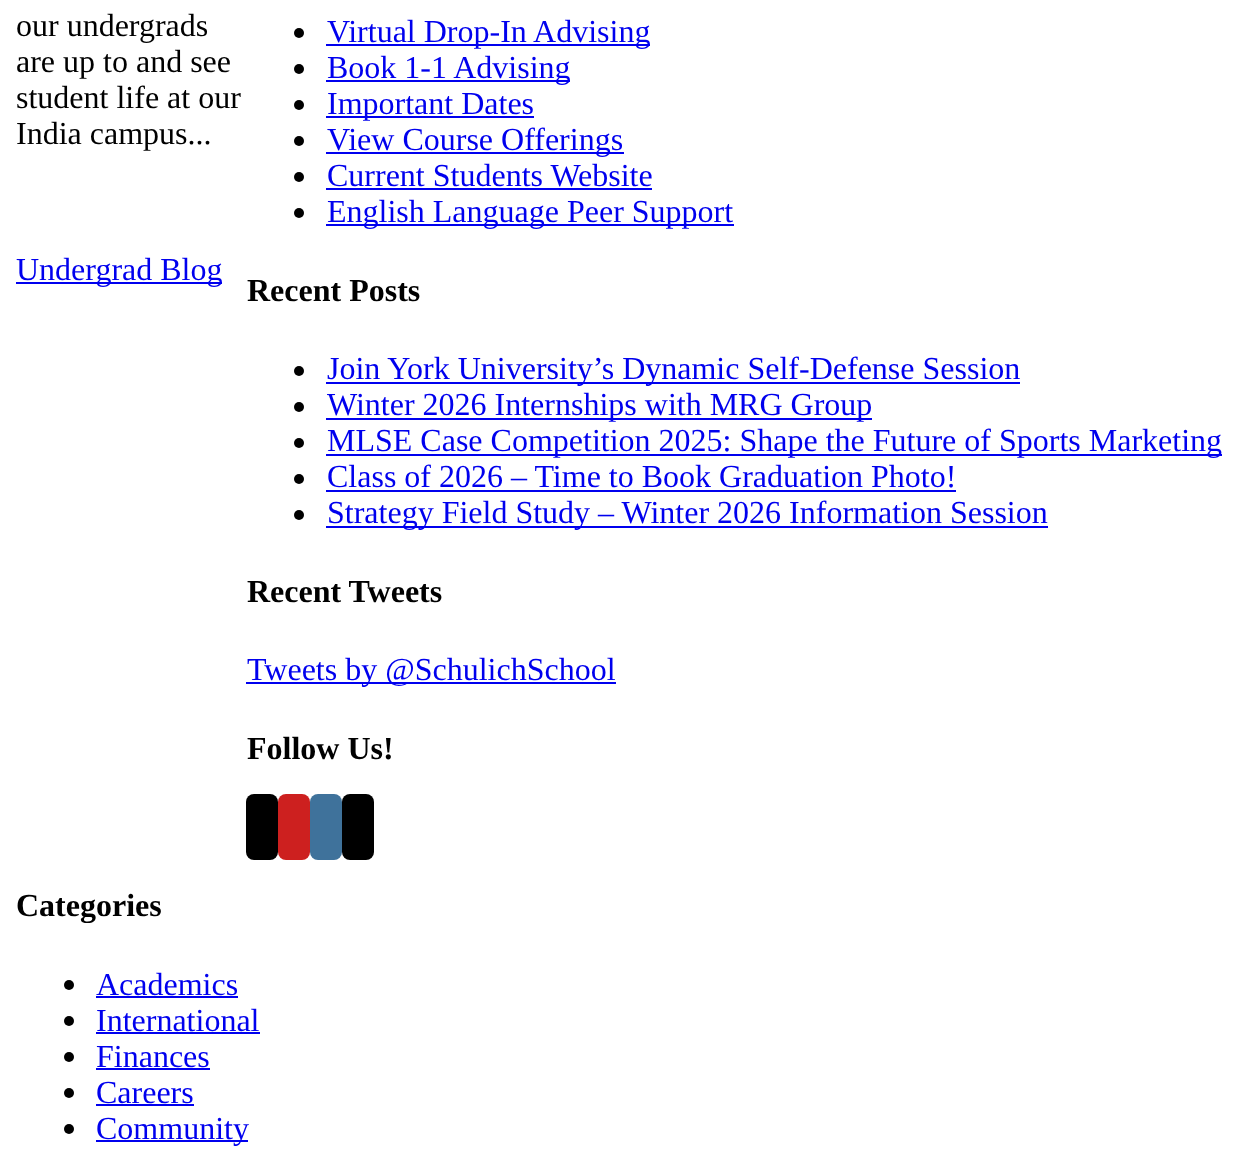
async function draw(canvas) {
  canvas.width = 1238
  canvas.height = 1153
  const ctx = canvas.getContext('2d')
  ctx.miterLimit = 4
  ctx.fontKerning = 'normal'

  ctx.fillStyle = '#fff'
  ctx.fillRect(0, 0, 1238, 1153)
  ctx.font = '32px Liberation Serif'
  ctx.fillStyle = '#000'
  ctx.fillText('our undergrads', 16, 36)
  ctx.fillText('are up to and see', 16, 72)
  ctx.fillText('student life at our', 16, 108)
  ctx.fillText('India campus...', 16, 144)
  ctx.fillStyle = '#00e'
  ctx.fillRect(16, 282, 206, 2)
  ctx.fillText('Undergrad Blog', 16, 280)
  ctx.font = 'bold 32px Liberation Serif'
  ctx.fillStyle = '#000'
  ctx.fillText('Categories', 16, 916)
  ctx.beginPath()
  ctx.arc(69, 985, 5, 0, 2 * Math.PI)
  ctx.fill()
  ctx.font = '32px Liberation Serif'
  ctx.fillStyle = '#00e'
  ctx.fillText('Academics', 96, 995)
  ctx.fillRect(96, 996, 142, 2)
  ctx.fillStyle = '#000'
  ctx.beginPath()
  ctx.arc(69, 1021, 5, 0, 2 * Math.PI)
  ctx.fill()
  ctx.fillStyle = '#00e'
  ctx.fillText('International', 96, 1031)
  ctx.fillRect(96, 1032, 164, 2)
  ctx.fillStyle = '#000'
  ctx.beginPath()
  ctx.arc(69, 1057, 5, 0, 2 * Math.PI)
  ctx.fill()
  ctx.fillStyle = '#00e'
  ctx.fillText('Finances', 96, 1067)
  ctx.fillRect(96, 1068, 114, 2)
  ctx.fillStyle = '#000'
  ctx.beginPath()
  ctx.arc(69, 1093, 5, 0, 2 * Math.PI)
  ctx.fill()
  ctx.fillStyle = '#00e'
  ctx.fillText('Careers', 96, 1103)
  ctx.fillRect(96, 1104, 98, 2)
  ctx.fillStyle = '#000'
  ctx.beginPath()
  ctx.arc(69, 1129, 5, 0, 2 * Math.PI)
  ctx.fill()
  ctx.fillStyle = '#00e'
  ctx.fillRect(96, 1140, 152, 2)
  ctx.fillText('Community', 96, 1139)
  ctx.fillStyle = '#000'
  ctx.beginPath()
  ctx.arc(299, 33, 5, 0, 2 * Math.PI)
  ctx.fill()
  ctx.fillStyle = '#00e'
  ctx.fillRect(326, 44, 324, 2)
  ctx.fillText('Virtual Drop-In Advising', 327, 42)
  ctx.fillStyle = '#000'
  ctx.beginPath()
  ctx.arc(299, 69, 5, 0, 2 * Math.PI)
  ctx.fill()
  ctx.fillStyle = '#00e'
  ctx.fillRect(326, 80, 244, 2)
  ctx.fillText('Book 1-1 Advising', 327, 78)
  ctx.fillStyle = '#000'
  ctx.beginPath()
  ctx.arc(299, 105, 5, 0, 2 * Math.PI)
  ctx.fill()
  ctx.fillStyle = '#00e'
  ctx.fillRect(326, 116, 208, 2)
  ctx.fillText('Important Dates', 327, 114)
  ctx.fillStyle = '#000'
  ctx.beginPath()
  ctx.arc(299, 141, 5, 0, 2 * Math.PI)
  ctx.fill()
  ctx.fillStyle = '#00e'
  ctx.fillRect(326, 152, 298, 2)
  ctx.fillText('View Course Offerings', 327, 150)
  ctx.fillStyle = '#000'
  ctx.beginPath()
  ctx.arc(299, 177, 5, 0, 2 * Math.PI)
  ctx.fill()
  ctx.fillStyle = '#00e'
  ctx.fillText('Current Students Website', 327, 186)
  ctx.fillRect(326, 188, 326, 2)
  ctx.fillStyle = '#000'
  ctx.beginPath()
  ctx.arc(299, 213, 5, 0, 2 * Math.PI)
  ctx.fill()
  ctx.fillStyle = '#00e'
  ctx.fillRect(326, 224, 408, 2)
  ctx.fillText('English Language Peer Support', 327, 222)
  ctx.font = 'bold 32px Liberation Serif'
  ctx.fillStyle = '#000'
  ctx.fillText('Recent Posts', 247, 301)
  ctx.beginPath()
  ctx.arc(299, 371, 5, 0, 2 * Math.PI)
  ctx.fill()
  ctx.fillStyle = '#00e'
  ctx.fillRect(326, 382, 694, 2)
  ctx.font = '32px Liberation Serif'
  ctx.fillText('Join York University’s Dynamic Self-Defense Session', 327, 379)
  ctx.fillStyle = '#000'
  ctx.beginPath()
  ctx.arc(299, 407, 5, 0, 2 * Math.PI)
  ctx.fill()
  ctx.fillStyle = '#00e'
  ctx.fillRect(326, 418, 546, 2)
  ctx.fillText('Winter 2026 Internships with MRG Group', 327, 415)
  ctx.fillStyle = '#000'
  ctx.beginPath()
  ctx.arc(299, 443, 5, 0, 2 * Math.PI)
  ctx.fill()
  ctx.fillStyle = '#00e'
  ctx.fillRect(326, 454, 896, 2)
  ctx.fillText('MLSE Case Competition 2025: Shape the Future of Sports Marketing', 327, 451)
  ctx.fillStyle = '#000'
  ctx.beginPath()
  ctx.arc(299, 479, 5, 0, 2 * Math.PI)
  ctx.fill()
  ctx.fillStyle = '#00e'
  ctx.fillText('Class of 2026 – Time to Book Graduation Photo!', 327, 487)
  ctx.fillRect(326, 490, 630, 2)
  ctx.fillStyle = '#000'
  ctx.beginPath()
  ctx.arc(299, 515, 5, 0, 2 * Math.PI)
  ctx.fill()
  ctx.fillStyle = '#00e'
  ctx.fillRect(326, 526, 722, 2)
  ctx.fillText('Strategy Field Study – Winter 2026 Information Session', 327, 523)
  ctx.font = 'bold 32px Liberation Serif'
  ctx.fillStyle = '#000'
  ctx.fillText('Recent Tweets', 247, 602)
  ctx.fillStyle = '#00e'
  ctx.fillRect(246, 682, 370, 2)
  ctx.font = '32px Liberation Serif'
  ctx.fillText('Tweets by @SchulichSchool', 247, 680)
  ctx.font = 'bold 32px Liberation Serif'
  ctx.fillStyle = '#000'
  ctx.fillText('Follow Us!', 247, 759)
  ctx.beginPath()
  ctx.roundRect(246, 794, 32, 66, 8)
  ctx.fill()
  ctx.fillStyle = '#cd201f'
  ctx.beginPath()
  ctx.roundRect(278, 794, 32, 66, 8)
  ctx.fill()
  ctx.fillStyle = '#3f729b'
  ctx.beginPath()
  ctx.roundRect(310, 794, 32, 66, 8)
  ctx.fill()
  ctx.fillStyle = '#000'
  ctx.beginPath()
  ctx.roundRect(342, 794, 32, 66, 8)
  ctx.fill()
}

draw(document.querySelector('canvas'))
